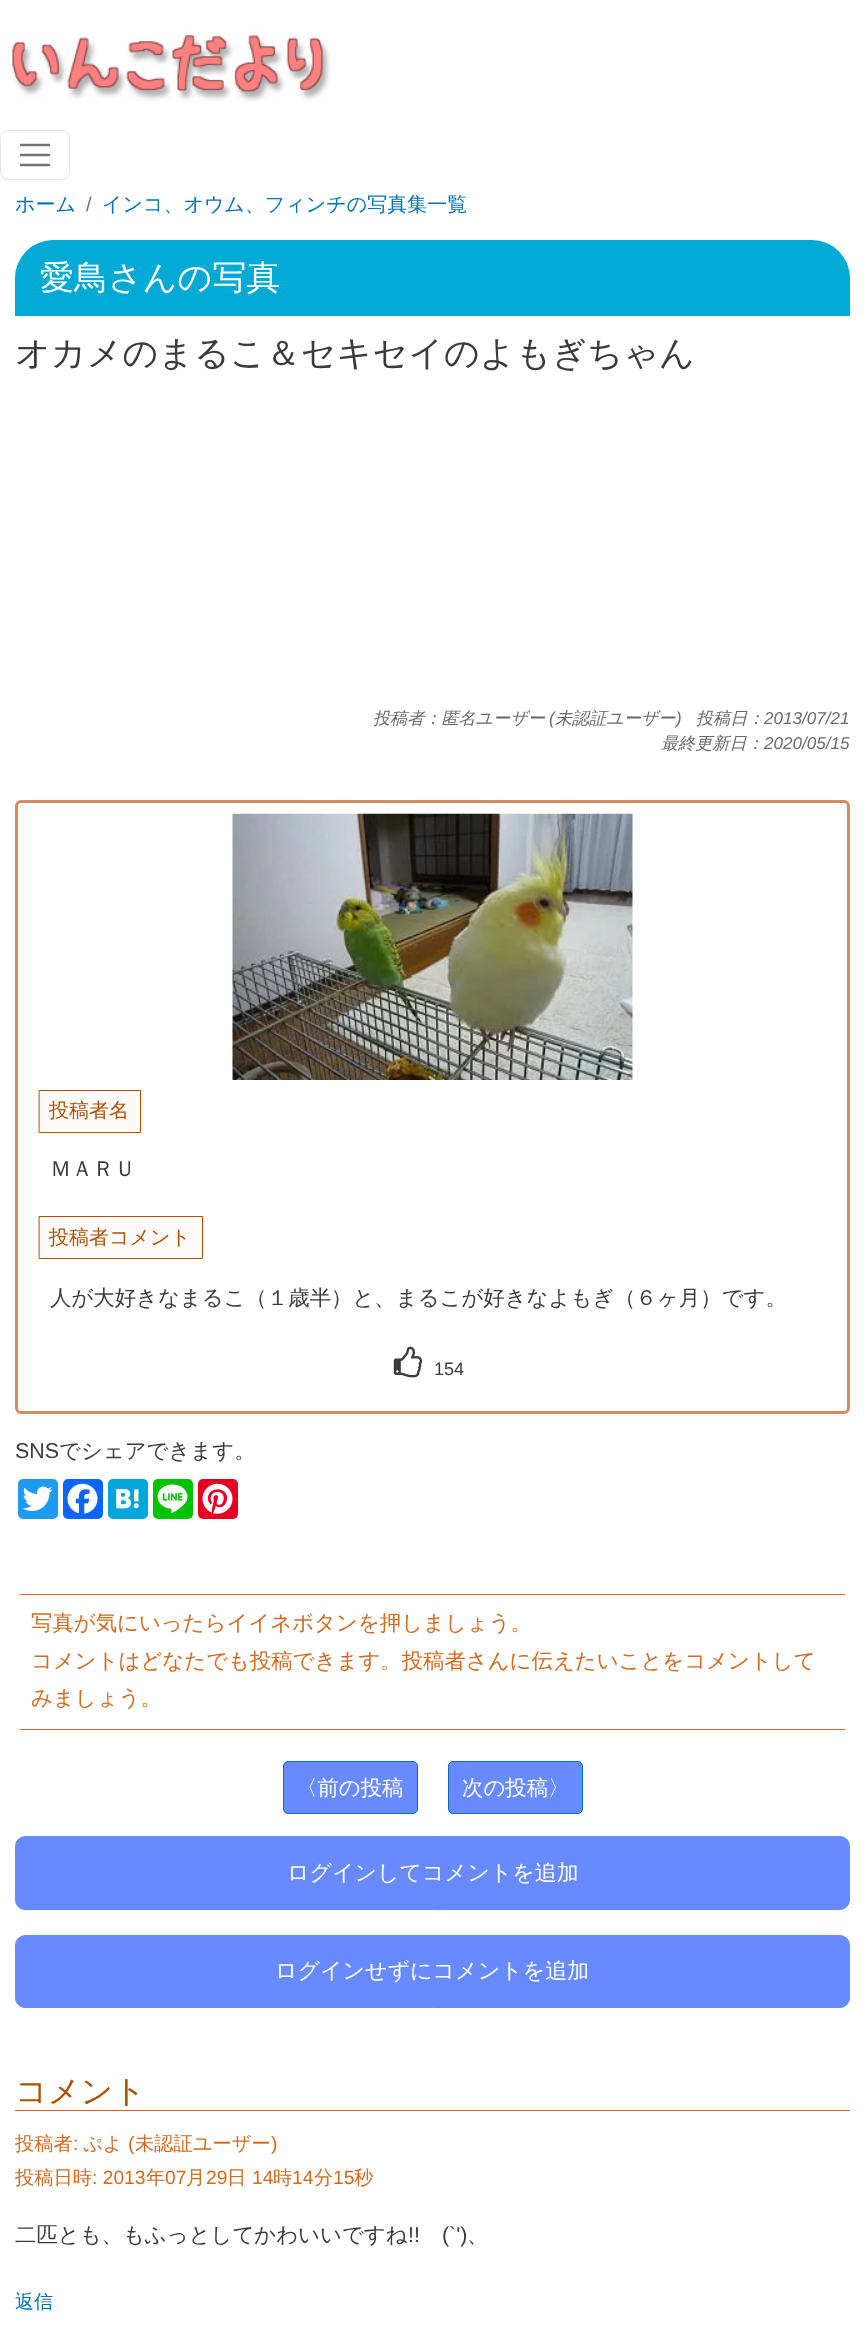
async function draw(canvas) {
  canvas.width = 864
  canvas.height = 2329
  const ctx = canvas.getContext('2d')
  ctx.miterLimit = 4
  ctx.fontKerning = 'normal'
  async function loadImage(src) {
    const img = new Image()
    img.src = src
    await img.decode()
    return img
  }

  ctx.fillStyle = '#fff'
  ctx.fillRect(0, 0, 864, 2329)
  ctx.drawImage(await loadImage('image0.png'), 8, 30, 323, 72)
  ctx.beginPath()
  ctx.roundRect(0.5, 130.5, 69, 49, 7.5)
  ctx.strokeStyle = '#e6e6e6'
  ctx.stroke()
  ctx.beginPath()
  ctx.moveTo(21, 145)
  ctx.lineTo(49, 145)
  ctx.moveTo(21, 155)
  ctx.lineTo(49, 155)
  ctx.moveTo(21, 165)
  ctx.lineTo(49, 165)
  ctx.strokeStyle = '#737373'
  ctx.lineWidth = 2.5
  ctx.lineCap = 'round'
  ctx.stroke()
  ctx.font = '500 20px WenQuanYi Zen Hei'
  ctx.fillStyle = '#0071b3'
  ctx.fillText('ホーム', 15, 211)
  ctx.font = '20px Liberation Sans'
  ctx.fillStyle = '#6c757d'
  ctx.fillText('/', 86, 211)
  ctx.font = '500 20px WenQuanYi Zen Hei'
  ctx.fillStyle = '#0071b3'
  ctx.fillText('インコ、オウム、フィンチの写真集一覧', 102, 211)
  ctx.fillStyle = '#00aad4'
  ctx.beginPath()
  ctx.roundRect(15, 240, 835, 76, [38, 38, 0, 0])
  ctx.fill()
  ctx.font = '500 34px WenQuanYi Zen Hei'
  ctx.fillStyle = '#fff'
  ctx.fillText('愛鳥さんの写真', 40, 289)
  ctx.font = '500 35px WenQuanYi Zen Hei'
  ctx.fillStyle = '#3b3b3b'
  ctx.fillText('オカメのまるこ＆セキセイのよもぎちゃん', 15, 365)
  ctx.font = 'italic 500 17.1px WenQuanYi Zen Hei'
  ctx.fillStyle = '#68696b'
  ctx.fillText('投稿者：匿名ユーザー', 373, 724)
  ctx.font = 'italic 17.1px Liberation Sans'
  ctx.fillText('(', 549, 724)
  ctx.font = 'italic 500 17.1px WenQuanYi Zen Hei'
  ctx.fillText('未認証ユーザー', 555, 724)
  ctx.font = 'italic 17.1px Liberation Sans'
  ctx.fillText(')', 676, 724)
  ctx.font = 'italic 500 17.1px WenQuanYi Zen Hei'
  ctx.fillText('投稿日：', 696, 724)
  ctx.font = 'italic 17.1px Liberation Sans'
  ctx.fillText('2013/07/21', 764, 724)
  ctx.font = 'italic 500 17.1px WenQuanYi Zen Hei'
  ctx.fillText('最終更新日：', 661, 749)
  ctx.font = 'italic 17.1px Liberation Sans'
  ctx.fillText('2020/05/15', 764, 749)
  ctx.beginPath()
  ctx.roundRect(16.5, 801.5, 832, 611, 4.5)
  ctx.strokeStyle = '#d38d5f'
  ctx.lineWidth = 3
  ctx.stroke()
  ctx.drawImage(await loadImage('image1.png'), 232, 813, 401, 267)
  ctx.fillStyle = '#fffafa'
  ctx.beginPath()
  ctx.rect(39.5, 1090.5, 101, 42)
  ctx.fill()
  ctx.strokeStyle = '#ae5000'
  ctx.lineWidth = 1
  ctx.stroke()
  ctx.font = '500 20px WenQuanYi Zen Hei'
  ctx.fillStyle = '#ae5000'
  ctx.fillText('投稿者名', 49, 1117)
  ctx.font = '500 21.4px WenQuanYi Zen Hei'
  ctx.fillStyle = '#3b3b3b'
  ctx.fillText('ＭＡＲＵ', 50, 1176)
  ctx.fillStyle = '#fffafa'
  ctx.beginPath()
  ctx.rect(39.5, 1216.5, 163, 42)
  ctx.fill()
  ctx.stroke()
  ctx.font = '500 20px WenQuanYi Zen Hei'
  ctx.fillStyle = '#ae5000'
  ctx.fillText('投稿者コメント', 49, 1244)
  ctx.font = '500 21.4px WenQuanYi Zen Hei'
  ctx.fillStyle = '#3b3b3b'
  ctx.fillText('人が大好きなまるこ（１歳半）と、まるこが好きなよもぎ（６ヶ月）です。', 50, 1305)
  ctx.drawImage(await loadImage('image2.png'), 393, 1346, 30, 32)
  ctx.font = '18px Liberation Sans'
  ctx.fillText('154', 434, 1375)
  ctx.font = '21.4px Liberation Sans'
  ctx.fillText('SNS', 15, 1458)
  ctx.font = '500 21.4px WenQuanYi Zen Hei'
  ctx.fillText('でシェアできます。', 59, 1458)
  ctx.fillStyle = '#1d9bf0'
  ctx.beginPath()
  ctx.roundRect(18, 1479, 40, 40, 5)
  ctx.fill()
  ctx.drawImage(await loadImage('image3.png'), 22, 1486, 31, 25)
  ctx.fillStyle = '#0866ff'
  ctx.beginPath()
  ctx.roundRect(63, 1479, 40, 40, 5)
  ctx.fill()
  ctx.drawImage(await loadImage('image4.png'), 67, 1483, 31, 31)
  ctx.fillStyle = '#00a6db'
  ctx.beginPath()
  ctx.roundRect(108, 1479, 40, 40, 5)
  ctx.fill()
  ctx.drawImage(await loadImage('image5.png'), 116, 1489, 23, 20)
  ctx.fillStyle = '#00c300'
  ctx.beginPath()
  ctx.roundRect(153, 1479, 40, 40, 5)
  ctx.fill()
  ctx.drawImage(await loadImage('image6.png'), 157, 1484, 31, 29)
  ctx.fillStyle = '#e60023'
  ctx.beginPath()
  ctx.roundRect(198, 1479, 40, 40, 5)
  ctx.fill()
  ctx.drawImage(await loadImage('image7.png'), 202, 1483, 31, 31)
  ctx.fillStyle = '#d2691e'
  ctx.fillRect(20, 1594, 825, 1)
  ctx.fillRect(20, 1729, 825, 1)
  ctx.fillText('写真が気にいったらイイネボタンを押しましょう。', 31, 1630)
  ctx.fillText('コメントはどなたでも投稿できます。投稿者さんに伝えたいことをコメントして', 31, 1668)
  ctx.fillText('みましょう。', 31, 1705)
  ctx.fillStyle = '#678aff'
  ctx.beginPath()
  ctx.roundRect(283.5, 1761.5, 134, 52, 4.5)
  ctx.fill()
  ctx.strokeStyle = '#0071b3'
  ctx.stroke()
  ctx.fillStyle = '#fff'
  ctx.fillText('〈前の投稿', 296, 1795)
  ctx.fillStyle = '#678aff'
  ctx.beginPath()
  ctx.roundRect(448.5, 1761.5, 134, 52, 4.5)
  ctx.fill()
  ctx.stroke()
  ctx.fillStyle = '#fff'
  ctx.fillText('次の投稿〉', 462, 1795)
  ctx.fillStyle = '#678aff'
  ctx.beginPath()
  ctx.roundRect(15.5, 1836.5, 834, 73, 9.5)
  ctx.fill()
  ctx.strokeStyle = '#678aff'
  ctx.stroke()
  ctx.font = '500 22px WenQuanYi Zen Hei'
  ctx.fillStyle = '#fff'
  ctx.fillText('ログインしてコメントを追加', 287, 1880)
  ctx.fillStyle = '#678aff'
  ctx.beginPath()
  ctx.roundRect(15.5, 1935.5, 834, 72, 9.5)
  ctx.fill()
  ctx.stroke()
  ctx.fillStyle = '#fff'
  ctx.fillText('ログインせずにコメントを追加', 275, 1978)
  ctx.fillStyle = '#d2691e'
  ctx.fillRect(15, 2110, 835, 1)
  ctx.font = '500 32px WenQuanYi Zen Hei'
  ctx.fillStyle = '#ae5000'
  ctx.fillText('コメント', 15, 2102)
  ctx.font = '500 19.25px WenQuanYi Zen Hei'
  ctx.fillStyle = '#d2691e'
  ctx.fillText('投稿者', 15, 2150)
  ctx.font = '19.25px Liberation Sans'
  ctx.fillText(':', 73, 2150)
  ctx.font = '500 19.25px WenQuanYi Zen Hei'
  ctx.fillText('ぷよ', 83, 2150)
  ctx.font = '19.25px Liberation Sans'
  ctx.fillText('(', 128, 2150)
  ctx.font = '500 19.25px WenQuanYi Zen Hei'
  ctx.fillText('未認証ユーザー', 135, 2150)
  ctx.font = '19.25px Liberation Sans'
  ctx.fillText(')', 271, 2150)
  ctx.font = '500 19.25px WenQuanYi Zen Hei'
  ctx.fillText('投稿日時', 15, 2184)
  ctx.font = '19.25px Liberation Sans'
  ctx.fillText(': 2013', 92, 2184)
  ctx.font = '500 19.25px WenQuanYi Zen Hei'
  ctx.fillText('年', 146, 2184)
  ctx.font = '19.25px Liberation Sans'
  ctx.fillText('07', 165, 2184)
  ctx.font = '500 19.25px WenQuanYi Zen Hei'
  ctx.fillText('月', 186, 2184)
  ctx.font = '19.25px Liberation Sans'
  ctx.fillText('29', 206, 2184)
  ctx.font = '500 19.25px WenQuanYi Zen Hei'
  ctx.fillText('日', 227, 2184)
  ctx.font = '19.25px Liberation Sans'
  ctx.fillText('14', 252, 2184)
  ctx.font = '500 19.25px WenQuanYi Zen Hei'
  ctx.fillText('時', 273, 2184)
  ctx.font = '19.25px Liberation Sans'
  ctx.fillText('14', 292, 2184)
  ctx.font = '500 19.25px WenQuanYi Zen Hei'
  ctx.fillText('分', 314, 2184)
  ctx.font = '19.25px Liberation Sans'
  ctx.fillText('15', 333, 2184)
  ctx.font = '500 19.25px WenQuanYi Zen Hei'
  ctx.fillText('秒', 354, 2184)
  ctx.font = '500 21.4px WenQuanYi Zen Hei'
  ctx.fillStyle = '#3b3b3b'
  ctx.fillText('二匹とも、もふっとしてかわいいですね', 15, 2242)
  ctx.font = '21.4px Liberation Sans'
  ctx.fillText('!!', 408, 2242)
  ctx.fillText('(`\')', 442, 2242)
  ctx.font = '500 21.4px WenQuanYi Zen Hei'
  ctx.fillText('、', 467, 2242)
  ctx.font = '500 19px WenQuanYi Zen Hei'
  ctx.fillStyle = '#0071b3'
  ctx.fillText('返信', 15, 2308)
}

draw(document.querySelector('canvas'))
